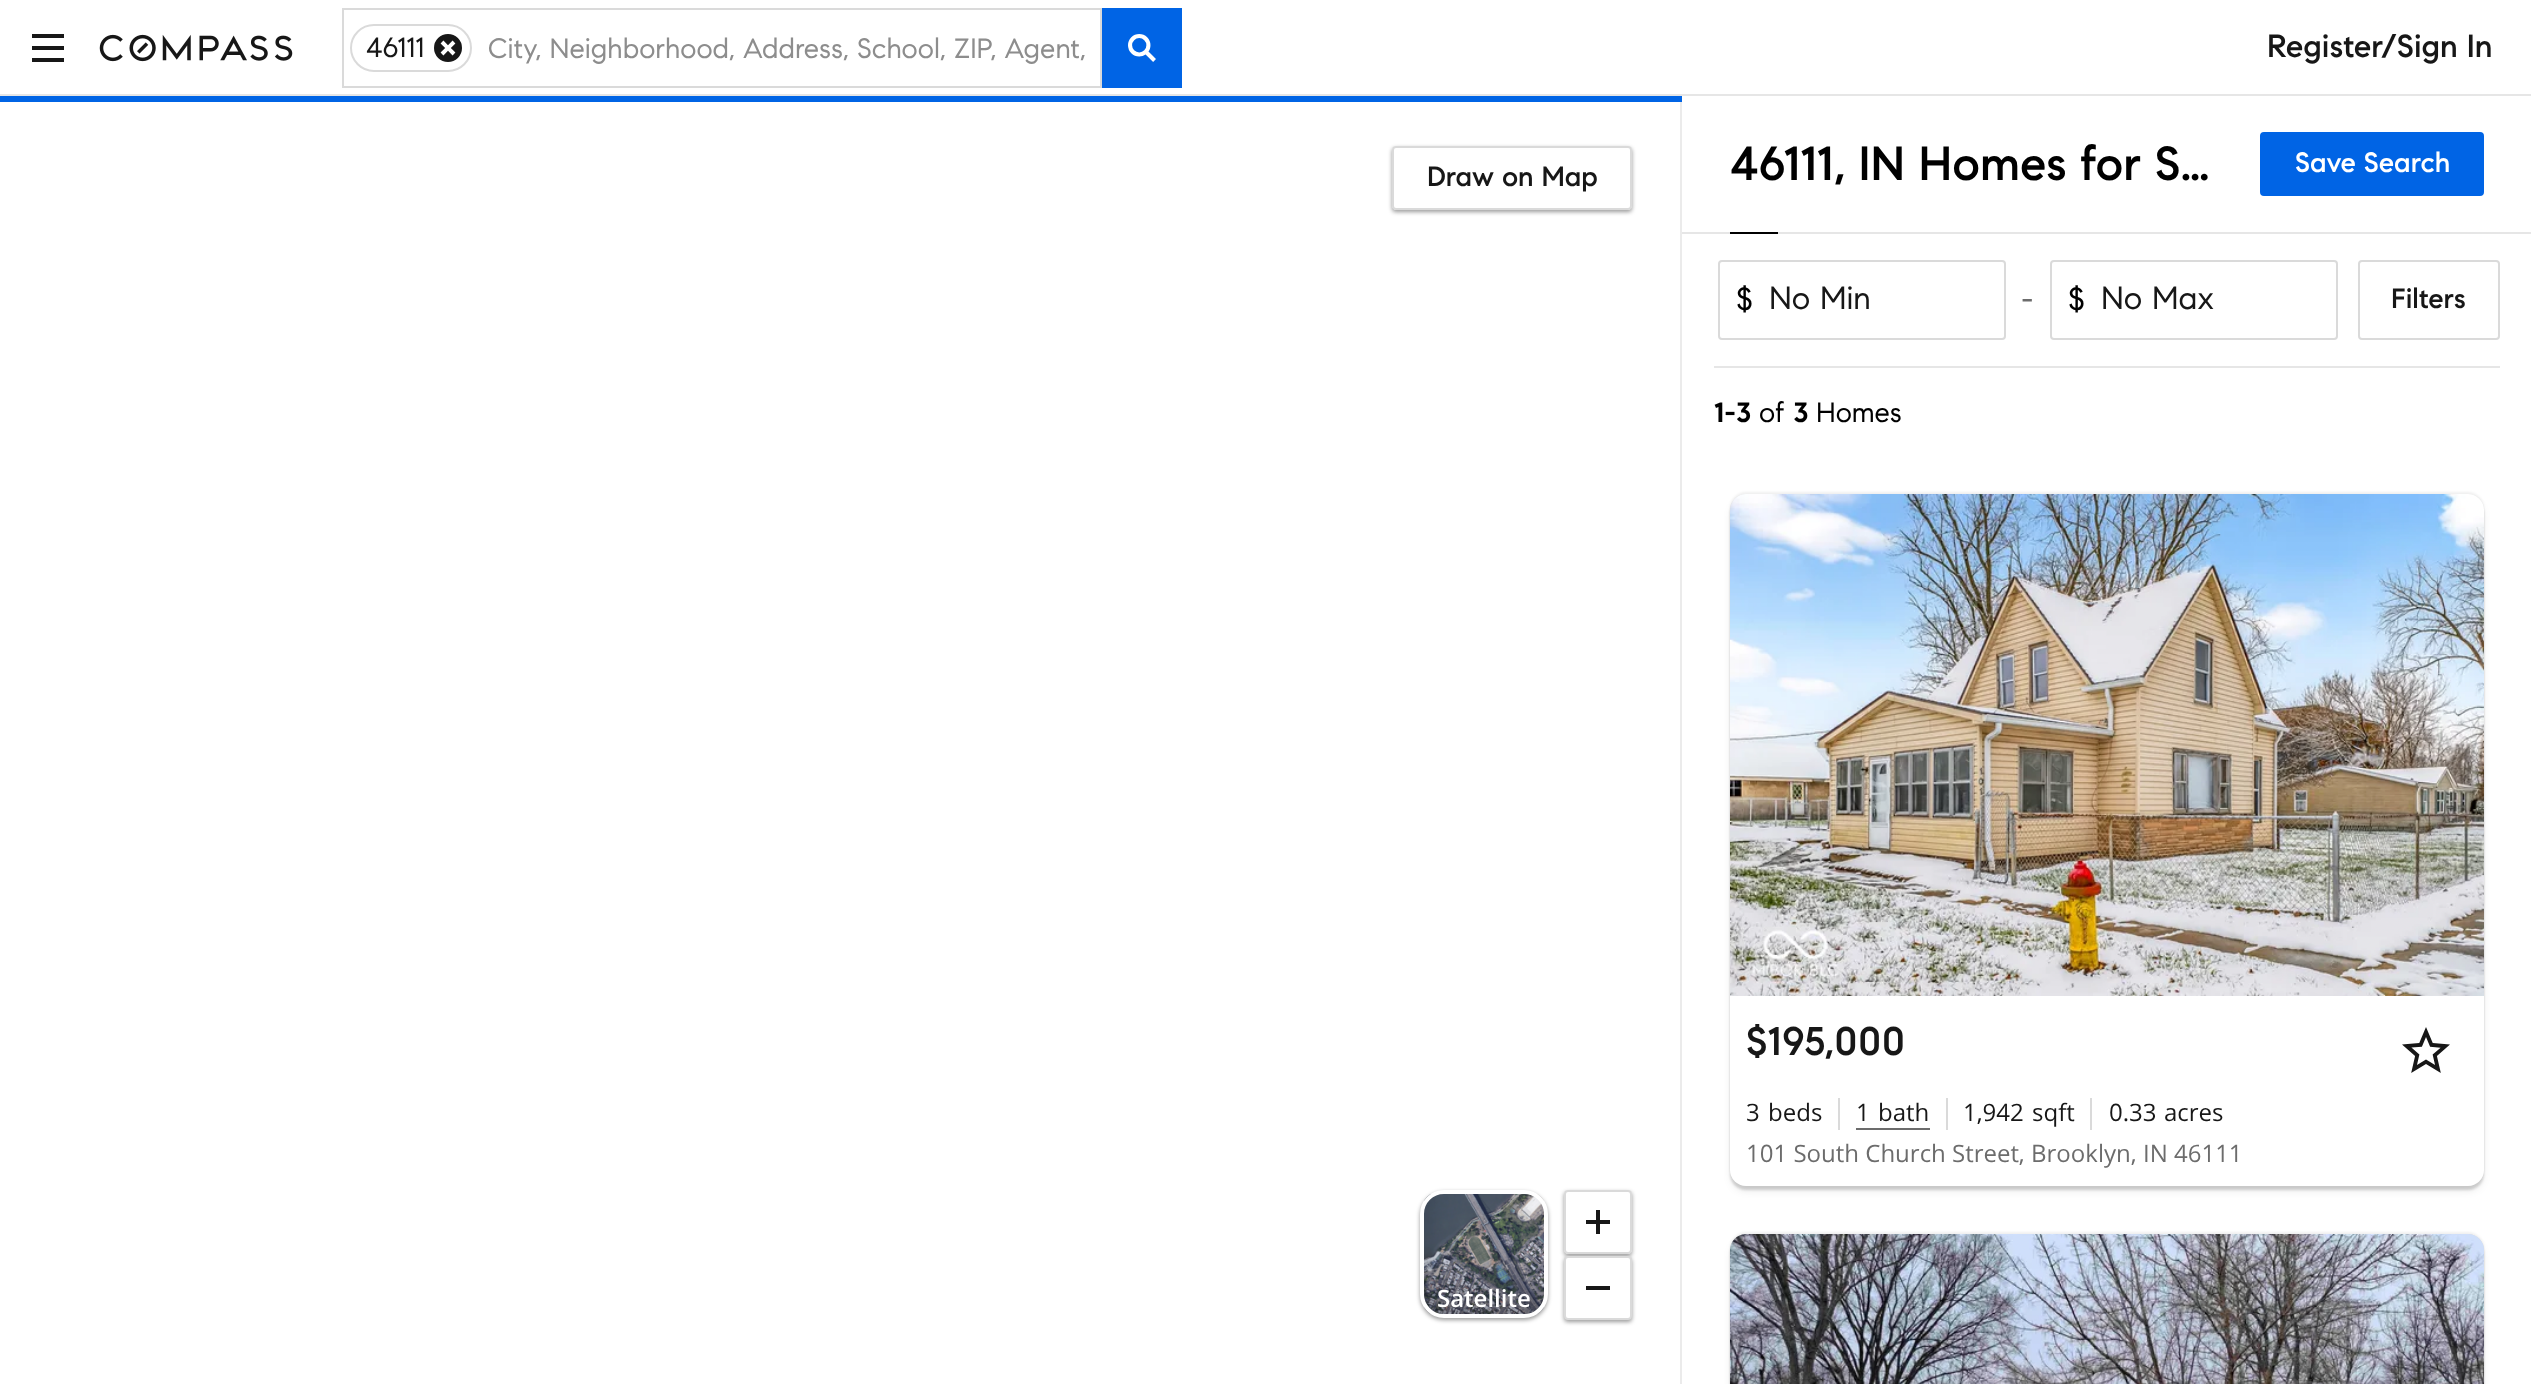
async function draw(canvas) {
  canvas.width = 2531
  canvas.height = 1384
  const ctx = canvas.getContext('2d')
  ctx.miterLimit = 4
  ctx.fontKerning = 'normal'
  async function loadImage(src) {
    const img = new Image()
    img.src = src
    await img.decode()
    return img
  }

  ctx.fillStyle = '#fff'
  ctx.fillRect(0, 0, 2531, 1384)
  ctx.fillStyle = '#e6e6e6'
  ctx.fillRect(0, 94, 2531, 2)
  ctx.drawImage(await loadImage('image0.png'), 32, 34, 32, 28)
  ctx.drawImage(await loadImage('image1.png'), 99, 34, 194, 28)
  ctx.strokeStyle = '#dadada'
  ctx.lineWidth = 2
  ctx.strokeRect(343, 9, 758, 78)
  ctx.beginPath()
  ctx.roundRect(351, 25, 120, 46, 23)
  ctx.stroke()
  ctx.font = '28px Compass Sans'
  ctx.fillStyle = '#171717'
  ctx.fillText('46111', 366, 57)
  ctx.drawImage(await loadImage('image2.png'), 434, 34, 28, 28)
  ctx.fillStyle = '#8d8d8d'
  ctx.fillText('City, Neighborhood, Address, School, ZIP, Agent,', 488, 58)
  ctx.fillStyle = '#0064e5'
  ctx.fillRect(1102, 8, 80, 80)
  ctx.drawImage(await loadImage('image3.png'), 1128, 34, 28, 28)
  ctx.font = '500 32px Compass Sans'
  ctx.fillStyle = '#171717'
  ctx.fillText('Register/Sign In', 2267, 57)
  ctx.fillStyle = '#00000014'
  ctx.beginPath()
  ctx.moveTo(1682, 96)
  ctx.lineTo(1682, 1384)
  ctx.lineTo(1680, 1384)
  ctx.lineTo(1680, 98)
  ctx.closePath()
  ctx.fill()
  ctx.fillStyle = '#0064e5'
  ctx.fillRect(0, 96, 1682, 6)
  ctx.save()
  ctx.beginPath()
  ctx.moveTo(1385, 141)
  ctx.lineTo(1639, 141)
  ctx.lineTo(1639, 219)
  ctx.lineTo(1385, 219)
  ctx.closePath()
  ctx.moveTo(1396, 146)
  ctx.lineTo(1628, 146)
  ctx.bezierCurveTo(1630, 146, 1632, 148, 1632, 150)
  ctx.lineTo(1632, 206)
  ctx.bezierCurveTo(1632, 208, 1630, 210, 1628, 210)
  ctx.lineTo(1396, 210)
  ctx.bezierCurveTo(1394, 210, 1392, 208, 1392, 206)
  ctx.lineTo(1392, 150)
  ctx.bezierCurveTo(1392, 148, 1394, 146, 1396, 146)
  ctx.closePath()
  ctx.clip('evenodd')
  ctx.fillStyle = '#00000066'
  ctx.filter = 'blur(2px)'
  ctx.beginPath()
  ctx.roundRect(1392, 148, 240, 64, 4)
  ctx.fill()
  ctx.filter = 'none'
  ctx.restore()
  ctx.beginPath()
  ctx.roundRect(1393, 147, 238, 62, 3)
  ctx.stroke()
  ctx.font = '500 28px Compass Sans'
  ctx.fillStyle = '#171717'
  ctx.fillText('Draw on Map', 1427, 186)
  ctx.fillStyle = '#00000066'
  ctx.filter = 'blur(2px)'
  ctx.beginPath()
  ctx.roundRect(1420, 1192, 128, 128, 24)
  ctx.fill()
  ctx.filter = 'none'
  ctx.drawImage(await loadImage('image4.png'), 1424, 1194, 120, 120)
  ctx.beginPath()
  ctx.roundRect(1422, 1192, 124, 124, 22)
  ctx.strokeStyle = '#fff'
  ctx.lineWidth = 4
  ctx.stroke()
  ctx.font = '600 24px Open Sans'
  ctx.fillStyle = '#fff'
  ctx.fillText('Satellite', 1437, 1307)
  ctx.save()
  ctx.beginPath()
  ctx.moveTo(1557, 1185)
  ctx.lineTo(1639, 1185)
  ctx.lineTo(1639, 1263)
  ctx.lineTo(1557, 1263)
  ctx.closePath()
  ctx.moveTo(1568, 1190)
  ctx.lineTo(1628, 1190)
  ctx.bezierCurveTo(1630, 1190, 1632, 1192, 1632, 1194)
  ctx.lineTo(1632, 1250)
  ctx.bezierCurveTo(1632, 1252, 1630, 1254, 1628, 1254)
  ctx.lineTo(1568, 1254)
  ctx.bezierCurveTo(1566, 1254, 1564, 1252, 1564, 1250)
  ctx.lineTo(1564, 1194)
  ctx.bezierCurveTo(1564, 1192, 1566, 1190, 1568, 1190)
  ctx.closePath()
  ctx.clip('evenodd')
  ctx.fillStyle = '#00000066'
  ctx.filter = 'blur(2px)'
  ctx.beginPath()
  ctx.roundRect(1564, 1192, 68, 64, 4)
  ctx.fill()
  ctx.filter = 'none'
  ctx.restore()
  ctx.beginPath()
  ctx.roundRect(1565, 1191, 66, 62, 3)
  ctx.strokeStyle = '#dadada'
  ctx.lineWidth = 2
  ctx.stroke()
  ctx.drawImage(await loadImage('image5.png'), 1586, 1210, 24, 24)
  ctx.fillStyle = '#00000066'
  ctx.filter = 'blur(2px)'
  ctx.beginPath()
  ctx.roundRect(1564, 1258, 68, 64, 4)
  ctx.fill()
  ctx.filter = 'none'
  ctx.fillStyle = '#fff'
  ctx.beginPath()
  ctx.roundRect(1565, 1257, 66, 62, 3)
  ctx.fill()
  ctx.stroke()
  ctx.fillStyle = '#171717'
  ctx.fillRect(1586, 1286, 24, 4)
  ctx.fillStyle = '#e6e6e6'
  ctx.fillRect(1682, 232, 849, 2)
  ctx.font = '500 48px Compass Sans'
  ctx.fillStyle = '#000'
  ctx.fillText('46111, IN Homes for S…', 1730, 180)
  ctx.fillStyle = '#0064e5'
  ctx.beginPath()
  ctx.roundRect(2261, 133, 222, 62, 3)
  ctx.fill()
  ctx.strokeStyle = '#0064e5'
  ctx.stroke()
  ctx.font = '500 28px Compass Sans'
  ctx.fillStyle = '#fff'
  ctx.fillText('Save Search', 2295, 172)
  ctx.fillStyle = '#000'
  ctx.fillRect(1730, 232, 48, 2)
  ctx.beginPath()
  ctx.roundRect(1719, 261, 286, 78, 3)
  ctx.strokeStyle = '#dadada'
  ctx.stroke()
  ctx.font = '32px Compass Sans'
  ctx.fillText('$', 1736, 310)
  ctx.fillStyle = '#171717'
  ctx.fillText('No Min', 1769, 309)
  ctx.fillStyle = '#6c6c6c'
  ctx.fillText('-', 2021, 310)
  ctx.beginPath()
  ctx.roundRect(2051, 261, 286, 78, 3)
  ctx.stroke()
  ctx.fillStyle = '#000'
  ctx.fillText('$', 2068, 310)
  ctx.fillStyle = '#171717'
  ctx.fillText('No Max', 2101, 309)
  ctx.beginPath()
  ctx.roundRect(2359, 261, 140, 78, 3)
  ctx.stroke()
  ctx.font = '500 28px Compass Sans'
  ctx.fillText('Filters', 2391, 308)
  ctx.fillStyle = '#e6e6e6'
  ctx.fillRect(1714, 366, 786, 2)
  ctx.font = 'bold 28px Compass Sans'
  ctx.fillStyle = '#000'
  ctx.fillText('1-3', 1714, 422)
  ctx.font = '28px Compass Sans'
  ctx.fillText('of', 1759, 422)
  ctx.font = 'bold 28px Compass Sans'
  ctx.fillText('3', 1793, 422)
  ctx.font = '28px Compass Sans'
  ctx.fillText('Homes', 1816, 422)
  ctx.fillStyle = '#0000000f'
  ctx.filter = 'blur(1px)'
  ctx.beginPath()
  ctx.roundRect(1730, 492, 754, 692, 16)
  ctx.fill()
  ctx.filter = 'none'
  ctx.fillStyle = '#00000024'
  ctx.filter = 'blur(1px)'
  ctx.beginPath()
  ctx.roundRect(1730, 498, 754, 692, 16)
  ctx.fill()
  ctx.filter = 'none'
  ctx.fillStyle = '#0000001a'
  ctx.filter = 'blur(4px)'
  ctx.beginPath()
  ctx.roundRect(1732, 502, 750, 688, 14)
  ctx.fill()
  ctx.filter = 'none'
  ctx.fillStyle = '#fff'
  ctx.beginPath()
  ctx.roundRect(1730, 494, 754, 692, 16)
  ctx.fill()
  ctx.fillStyle = '#dadada'
  ctx.beginPath()
  ctx.roundRect(1730, 494, 754, 502, [16, 16, 0, 0])
  ctx.fill()
  ctx.drawImage(await loadImage('image6.png'), 1730, 494, 754, 502)
  ctx.font = '500 40px Compass Sans'
  ctx.fillStyle = '#171717'
  ctx.fillText('$195,000', 1746, 1055)
  ctx.drawImage(await loadImage('image7.png'), 2402, 1027, 48, 46)
  ctx.font = '24px Open Sans'
  ctx.fillText('3', 1746, 1121)
  ctx.fillText('beds', 1768, 1121)
  ctx.fillStyle = '#dadada'
  ctx.fillRect(1838, 1098, 2, 32)
  ctx.fillStyle = '#6c6c6c'
  ctx.fillRect(1856, 1128, 74, 2)
  ctx.fillStyle = '#171717'
  ctx.fillText('1', 1856, 1121)
  ctx.fillText('bath', 1878, 1121)
  ctx.fillStyle = '#dadada'
  ctx.fillRect(1946, 1098, 2, 32)
  ctx.fillStyle = '#171717'
  ctx.fillText('1,942', 1963, 1121)
  ctx.fillText('sqft', 2032, 1121)
  ctx.fillStyle = '#dadada'
  ctx.fillRect(2090, 1098, 2, 32)
  ctx.fillStyle = '#171717'
  ctx.fillText('0.33', 2109, 1121)
  ctx.fillText('acres', 2164, 1121)
  ctx.fillStyle = '#6c6c6c'
  ctx.fillText('101 South Church Street, Brooklyn, IN 46111', 1746, 1162)
  ctx.fillStyle = '#0000000f'
  ctx.filter = 'blur(1px)'
  ctx.beginPath()
  ctx.roundRect(1730, 1232, 754, 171, 16)
  ctx.fill()
  ctx.filter = 'none'
  ctx.fillStyle = '#00000024'
  ctx.filter = 'blur(1px)'
  ctx.beginPath()
  ctx.roundRect(1730, 1238, 754, 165, 16)
  ctx.fill()
  ctx.filter = 'none'
  ctx.fillStyle = '#0000001a'
  ctx.filter = 'blur(4px)'
  ctx.beginPath()
  ctx.roundRect(1732, 1242, 750, 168, 14)
  ctx.fill()
  ctx.filter = 'none'
  ctx.fillStyle = '#dadada'
  ctx.beginPath()
  ctx.roundRect(1730, 1234, 754, 150, [16, 16, 0, 0])
  ctx.fill()
  ctx.drawImage(await loadImage('image8.png'), 1730, 1234, 754, 150)
}

draw(document.querySelector('canvas'))
